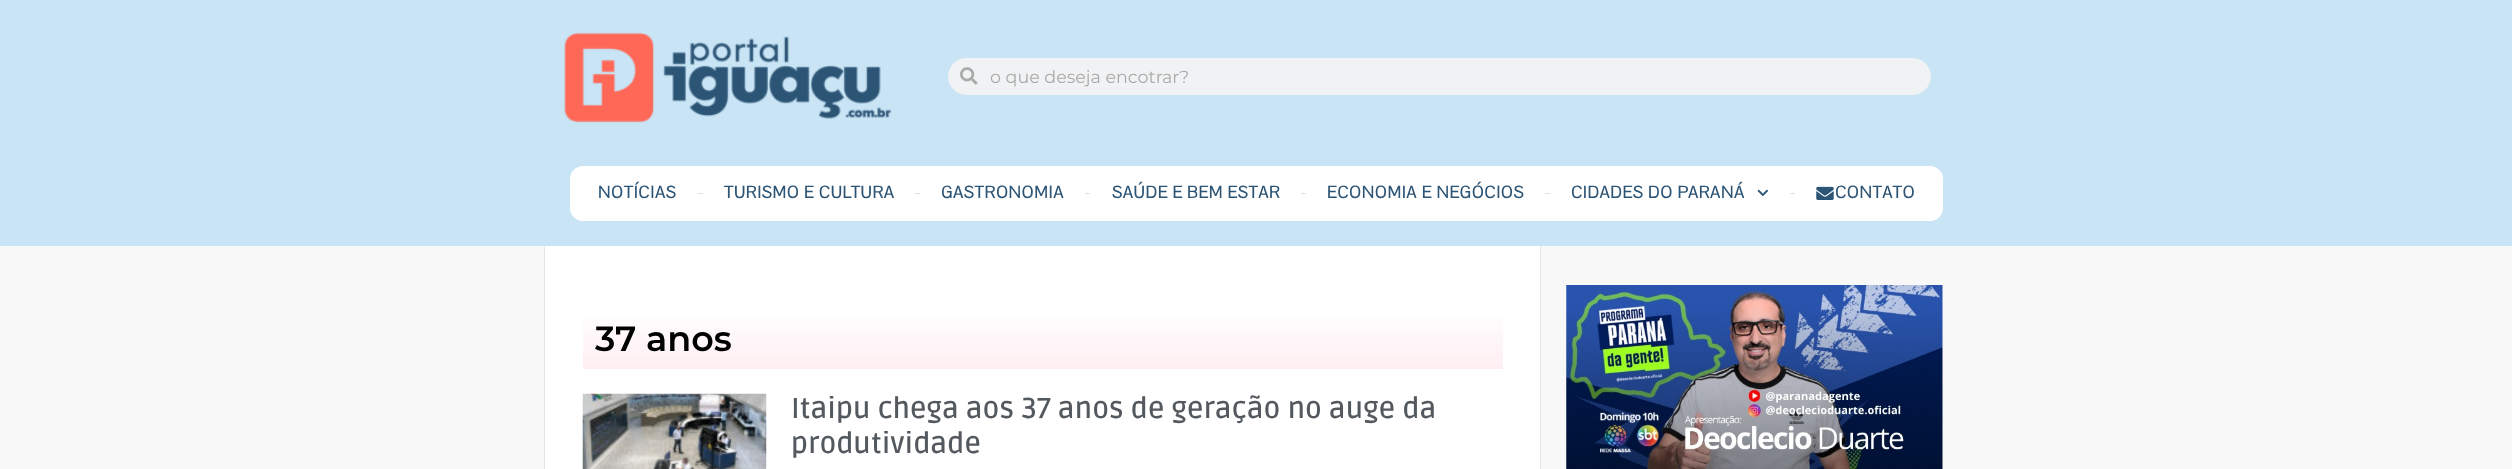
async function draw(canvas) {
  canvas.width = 2512
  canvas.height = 469
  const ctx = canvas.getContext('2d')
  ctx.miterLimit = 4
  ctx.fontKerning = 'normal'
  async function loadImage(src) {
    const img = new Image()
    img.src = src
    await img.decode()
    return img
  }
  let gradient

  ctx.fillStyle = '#c8e4f5'
  ctx.fillRect(0, 0, 2512, 469)
  ctx.drawImage(await loadImage('image0.png'), 564, 32, 328, 91)
  ctx.fillStyle = '#f1f2f3'
  ctx.beginPath()
  ctx.roundRect(948, 58, 983, 37, 18.5)
  ctx.fill()
  ctx.drawImage(await loadImage('image1.png'), 960, 67, 18, 18)
  ctx.font = '17.5px Montserrat'
  ctx.fillStyle = '#aaa'
  ctx.fillText('o que deseja encotrar?', 990, 83)
  ctx.fillStyle = '#fff'
  ctx.beginPath()
  ctx.roundRect(570, 166, 1373, 55, 13)
  ctx.fill()
  ctx.letterSpacing = '0.9px'
  ctx.font = 'bold 17.5px Pavanam'
  ctx.fillStyle = '#2c5475'
  ctx.fillText('NOTÍCIAS', 598, 198)
  ctx.fillStyle = '#e0e0e0'
  ctx.fillRect(698, 193, 5, 1)
  ctx.fillStyle = '#2c5475'
  ctx.fillText('TURISMO E CULTURA', 724, 198)
  ctx.fillStyle = '#e0e0e0'
  ctx.fillRect(915, 193, 5, 1)
  ctx.fillStyle = '#2c5475'
  ctx.fillText('GASTRONOMIA', 941, 198)
  ctx.fillStyle = '#e0e0e0'
  ctx.fillRect(1085, 193, 5, 1)
  ctx.fillStyle = '#2c5475'
  ctx.fillText('SAÚDE E BEM ESTAR', 1112, 198)
  ctx.fillStyle = '#e0e0e0'
  ctx.fillRect(1301, 193, 5, 1)
  ctx.fillStyle = '#2c5475'
  ctx.fillText('ECONOMIA E NEGÓCIOS', 1327, 198)
  ctx.fillStyle = '#e0e0e0'
  ctx.fillRect(1545, 193, 5, 1)
  ctx.fillStyle = '#2c5475'
  ctx.fillText('CIDADES DO PARANÁ', 1571, 198)
  ctx.drawImage(await loadImage('image2.png'), 1757, 189, 11, 7)
  ctx.fillStyle = '#e0e0e0'
  ctx.fillRect(1790, 193, 5, 1)
  ctx.drawImage(await loadImage('image3.png'), 1816, 186, 18, 14)
  ctx.fillStyle = '#2c5475'
  ctx.fillText('CONTATO', 1835, 198)
  ctx.fillStyle = '#f8f8f8'
  ctx.fillRect(0, 246, 2512, 223)
  ctx.fillStyle = '#fff'
  ctx.fillRect(545, 246, 995, 223)
  ctx.fillStyle = '#e7e6e6'
  ctx.fillRect(1540, 246, 1, 223)
  ctx.fillRect(544, 246, 1, 223)
  gradient = ctx.createLinearGradient(1043, 309, 1043, 369)
  gradient.addColorStop(0, '#fff')
  gradient.addColorStop(1, '#feeef2')
  ctx.fillStyle = gradient
  ctx.fillRect(583, 318, 920, 51)
  ctx.letterSpacing = '0px'
  ctx.font = '600 35px Montserrat'
  ctx.fillStyle = '#000'
  ctx.fillText('37 anos', 595, 351)
  ctx.drawImage(await loadImage('image4.png'), 582, 393, 185, 76)
  ctx.font = '600 28.75px Ruda'
  ctx.fillStyle = '#54595f'
  ctx.fillText('Itaipu chega aos 37 anos de geração no auge da', 791, 418)
  ctx.fillText('produtividade', 791, 453)
  ctx.drawImage(await loadImage('image5.png'), 1566, 285, 377, 184)
}

draw(document.querySelector('canvas'))
